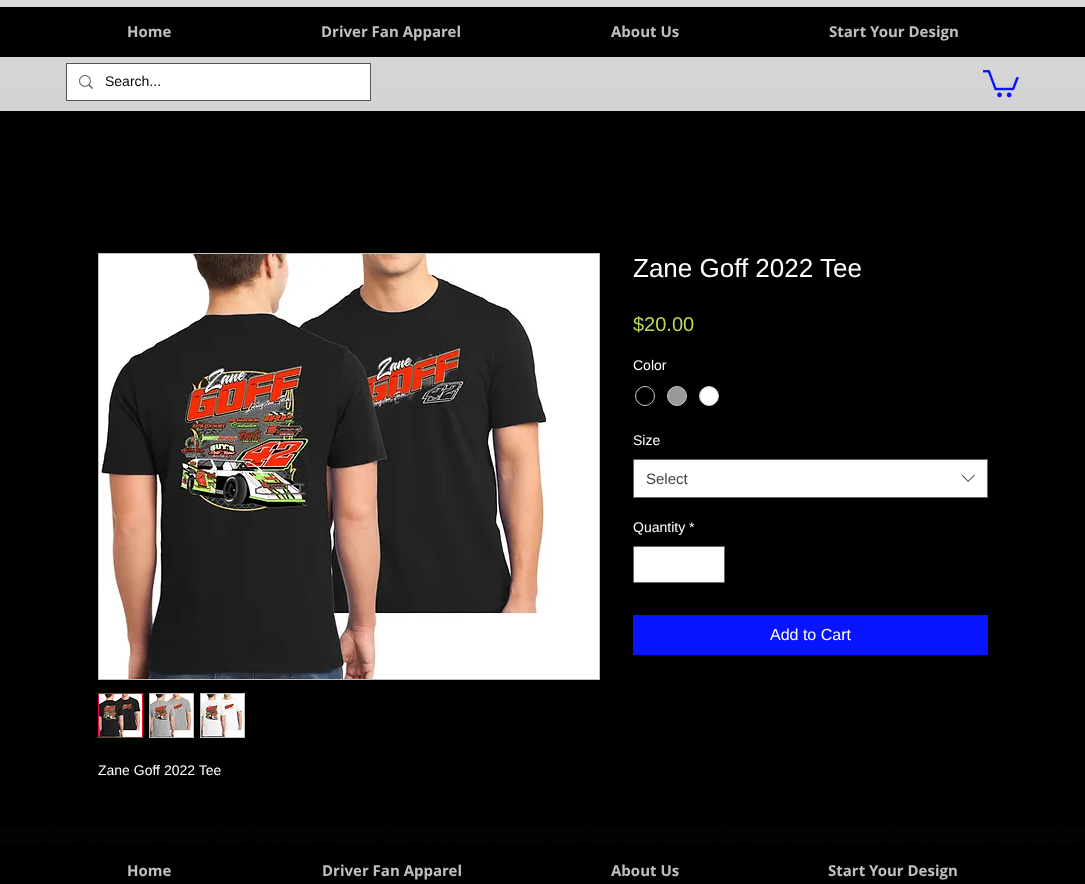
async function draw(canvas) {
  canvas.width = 1085
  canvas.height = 884
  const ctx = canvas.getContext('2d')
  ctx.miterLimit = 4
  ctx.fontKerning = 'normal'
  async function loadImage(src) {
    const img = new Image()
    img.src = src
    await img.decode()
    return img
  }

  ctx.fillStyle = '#000'
  ctx.fillRect(0, 0, 1085, 884)
  ctx.fillStyle = '#ccc'
  ctx.fillRect(0, 0, 1085, 111)
  ctx.drawImage(await loadImage('image0.png'), 0, 0, 1085, 111)
  ctx.fillStyle = '#000'
  ctx.fillRect(0, 7, 1085, 50)
  ctx.font = 'bold 15px Open Sans'
  ctx.fillStyle = '#c0c0c0'
  ctx.fillText('Home', 127, 37)
  ctx.fillText('Driver Fan Apparel', 321, 37)
  ctx.fillText('About Us', 611, 37)
  ctx.fillText('Start Your Design', 829, 37)
  ctx.strokeStyle = '#555'
  ctx.strokeRect(66.5, 63.5, 304, 37)
  ctx.fillStyle = '#fff'
  ctx.fillRect(67, 64, 303, 36)
  ctx.drawImage(await loadImage('image1.png'), 79, 75, 14, 14)
  ctx.font = '14px Liberation Sans'
  ctx.fillStyle = '#000'
  ctx.fillText('Search...', 105, 86)
  ctx.drawImage(await loadImage('image2.png'), 983, 70, 36, 28)
  ctx.font = '26px Liberation Sans'
  ctx.fillStyle = '#fff'
  ctx.fillText('Zane Goff 2022 Tee', 633, 277)
  ctx.font = '20px Liberation Sans'
  ctx.fillStyle = '#bada55'
  ctx.fillText('$20.00', 633, 331)
  ctx.font = '14px Liberation Sans'
  ctx.fillStyle = '#fff'
  ctx.fillText('Color', 633, 370)
  ctx.beginPath()
  ctx.arc(645, 396, 9.5, 0, 2 * Math.PI)
  ctx.strokeStyle = '#c9c9c9'
  ctx.stroke()
  ctx.fillStyle = '#999'
  ctx.beginPath()
  ctx.arc(677, 396, 9.5, 0, 2 * Math.PI)
  ctx.fill()
  ctx.stroke()
  ctx.fillStyle = '#fff'
  ctx.beginPath()
  ctx.arc(709, 396, 9.5, 0, 2 * Math.PI)
  ctx.fill()
  ctx.stroke()
  ctx.fillText('Size', 633, 445)
  ctx.beginPath()
  ctx.rect(633.5, 459.5, 354, 38)
  ctx.fill()
  ctx.strokeStyle = '#666'
  ctx.stroke()
  ctx.font = '15px Liberation Sans'
  ctx.fillStyle = '#444'
  ctx.fillText('Select', 646, 484)
  ctx.drawImage(await loadImage('image3.png'), 961, 474, 14, 8)
  ctx.font = '14px Liberation Sans'
  ctx.fillStyle = '#fff'
  ctx.fillText('Quantity *', 633, 532)
  ctx.beginPath()
  ctx.rect(633.5, 546.5, 91, 36)
  ctx.fill()
  ctx.stroke()
  ctx.fillStyle = '#0814ff'
  ctx.fillRect(633, 615, 355, 40)
  ctx.font = '16px Liberation Sans'
  ctx.fillStyle = '#fff'
  ctx.fillText('Add to Cart', 770, 640)
  ctx.strokeStyle = '#c0c0c0'
  ctx.strokeRect(98.5, 253.5, 501, 426)
  ctx.drawImage(await loadImage('image4.png'), 99, 254, 500, 425)
  ctx.strokeStyle = '#f00534'
  ctx.strokeRect(98.5, 693.5, 44, 44)
  ctx.drawImage(await loadImage('image5.png'), 99, 694, 43, 43)
  ctx.strokeStyle = '#c0c0c0'
  ctx.strokeRect(149.5, 693.5, 44, 44)
  ctx.drawImage(await loadImage('image6.png'), 150, 694, 43, 43)
  ctx.strokeRect(200.5, 693.5, 44, 44)
  ctx.drawImage(await loadImage('image7.png'), 201, 694, 43, 43)
  ctx.font = '14px Liberation Sans'
  ctx.fillText('Zane Goff 2022 Tee', 98, 775)
  ctx.drawImage(await loadImage('image8.png'), 0, 827, 1085, 17)
  ctx.font = 'bold 15px Open Sans'
  ctx.fillStyle = '#c0c0c0'
  ctx.fillText('Home', 127, 876)
  ctx.fillText('Driver Fan Apparel', 322, 876)
  ctx.fillText('About Us', 611, 876)
  ctx.fillText('Start Your Design', 828, 876)
}

draw(document.querySelector('canvas'))
